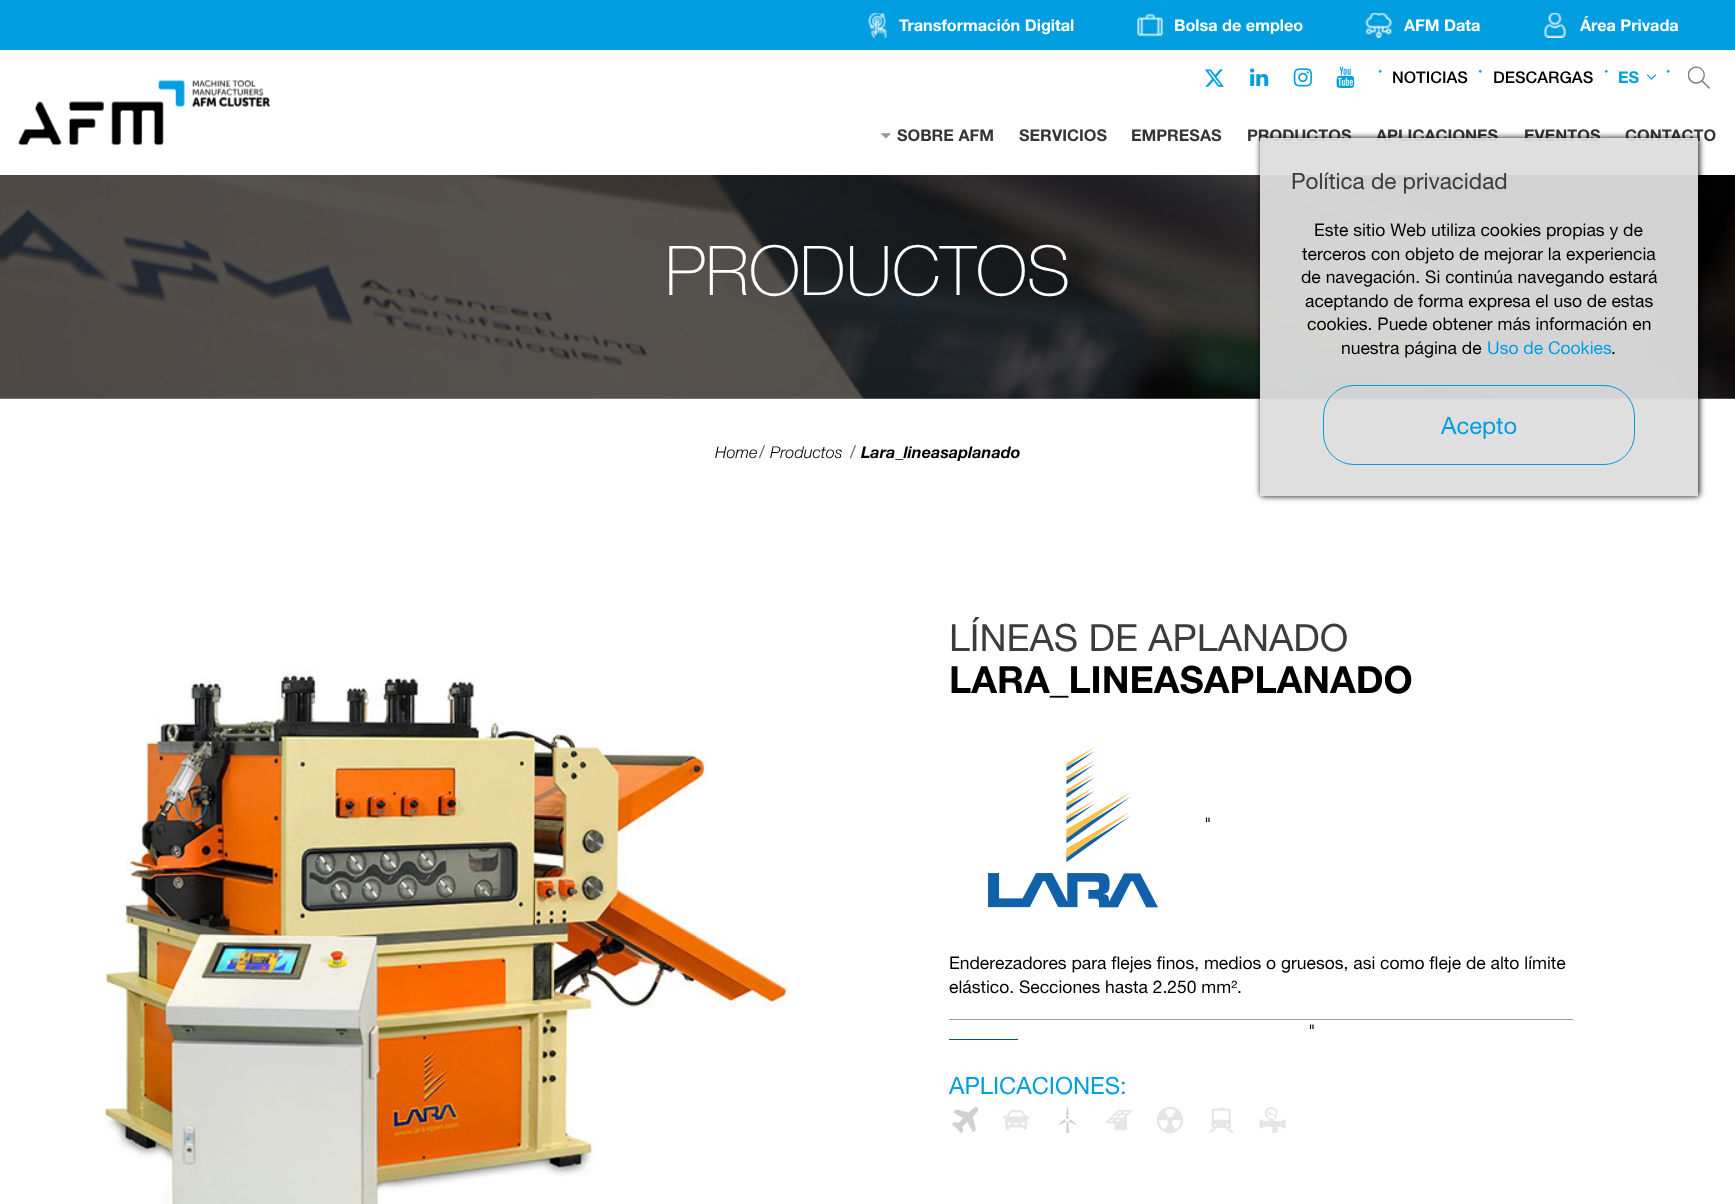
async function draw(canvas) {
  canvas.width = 1735
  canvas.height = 1204
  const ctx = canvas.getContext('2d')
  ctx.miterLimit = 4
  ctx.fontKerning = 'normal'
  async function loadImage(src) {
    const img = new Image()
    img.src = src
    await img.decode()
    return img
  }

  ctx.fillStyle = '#fff'
  ctx.fillRect(0, 0, 1735, 1204)
  ctx.fillStyle = '#009ee0'
  ctx.fillRect(0, 0, 1735, 50)
  ctx.drawImage(await loadImage('image0.png'), 868, 13, 19, 25)
  ctx.font = 'bold 16.25px Helvetica Neue'
  ctx.fillStyle = '#fff'
  ctx.fillText('Transformación Digital', 899, 31)
  ctx.drawImage(await loadImage('image1.png'), 1137, 13, 26, 24)
  ctx.fillText('Bolsa de empleo', 1174, 31)
  ctx.drawImage(await loadImage('image2.png'), 1365, 13, 27, 25)
  ctx.fillText('AFM Data', 1404, 31)
  ctx.drawImage(await loadImage('image3.png'), 1543, 13, 24, 25)
  ctx.fillText('Área Privada', 1580, 31)
  ctx.drawImage(await loadImage('image4.png'), 18, 80, 252, 65)
  ctx.drawImage(await loadImage('image5.png'), 1205, 69, 19, 18)
  ctx.drawImage(await loadImage('image6.png'), 1250, 68, 19, 18)
  ctx.drawImage(await loadImage('image7.png'), 1293, 68, 19, 19)
  ctx.drawImage(await loadImage('image8.png'), 1336, 66, 19, 22)
  ctx.fillStyle = '#009ee0'
  ctx.fillText('·', 1378, 76)
  ctx.font = '500 16.25px Helvetica Neue'
  ctx.fillStyle = '#000'
  ctx.fillText('NOTICIAS', 1392, 83)
  ctx.font = 'bold 16.25px Helvetica Neue'
  ctx.fillStyle = '#009ee0'
  ctx.fillText('·', 1478, 76)
  ctx.font = '500 16.25px Helvetica Neue'
  ctx.fillStyle = '#000'
  ctx.fillText('DESCARGAS', 1493, 83)
  ctx.font = 'bold 16.25px Helvetica Neue'
  ctx.fillStyle = '#009ee0'
  ctx.fillText('·', 1604, 76)
  ctx.fillText('ES', 1618, 83)
  ctx.drawImage(await loadImage('image9.png'), 1647, 74, 9, 6)
  ctx.fillText('·', 1666, 76)
  ctx.drawImage(await loadImage('image10.png'), 1688, 66, 22, 23)
  ctx.drawImage(await loadImage('image11.png'), 881, 133, 10, 6)
  ctx.fillStyle = '#363636'
  ctx.fillText('SOBRE AFM', 897, 141)
  ctx.fillText('SERVICIOS', 1019, 141)
  ctx.fillText('EMPRESAS', 1131, 141)
  ctx.fillText('PRODUCTOS', 1247, 141)
  ctx.fillText('APLICACIONES', 1376, 141)
  ctx.fillText('EVENTOS', 1524, 141)
  ctx.fillText('CONTACTO', 1625, 141)
  ctx.drawImage(await loadImage('image12.png'), 0, 175, 1735, 224)
  ctx.save()
  ctx.beginPath()
  ctx.moveTo(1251, 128)
  ctx.lineTo(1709, 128)
  ctx.lineTo(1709, 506)
  ctx.lineTo(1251, 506)
  ctx.closePath()
  ctx.moveTo(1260, 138)
  ctx.lineTo(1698, 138)
  ctx.lineTo(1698, 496)
  ctx.lineTo(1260, 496)
  ctx.closePath()
  ctx.clip('evenodd')
  ctx.fillStyle = '#000'
  ctx.filter = 'blur(3px)'
  ctx.beginPath()
  ctx.rect(1261, 138, 438, 358)
  ctx.fill()
  ctx.filter = 'none'
  ctx.restore()
  ctx.fillStyle = '#ddddddf2'
  ctx.fillRect(1260, 138, 438, 358)
  ctx.font = '22.5px Helvetica Neue'
  ctx.fillStyle = '#3c3c3c'
  ctx.fillText('Política de privacidad', 1291, 189)
  ctx.font = '17.5px Helvetica Neue'
  ctx.fillStyle = '#000'
  ctx.fillText('Este sitio Web utiliza cookies propias y de', 1314, 236)
  ctx.fillText('terceros con objeto de mejorar la experiencia', 1302, 260)
  ctx.fillText('de navegación. Si continúa navegando estará', 1301, 283)
  ctx.fillText('aceptando de forma expresa el uso de estas', 1305, 307)
  ctx.fillText('cookies. Puede obtener más información en', 1307, 330)
  ctx.fillText('nuestra página de', 1341, 354)
  ctx.fillStyle = '#009ee0'
  ctx.fillText('Uso de Cookies', 1487, 354)
  ctx.fillStyle = '#000'
  ctx.fillText('.', 1611, 354)
  ctx.beginPath()
  ctx.roundRect(1323.5, 385.5, 311, 79, 30.5)
  ctx.strokeStyle = '#009ee0'
  ctx.stroke()
  ctx.font = '23.75px Helvetica Neue'
  ctx.fillStyle = '#009ee0'
  ctx.fillText('Acepto', 1441, 434)
  ctx.font = '200 68.75px Helvetica Neue'
  ctx.fillStyle = '#fff'
  ctx.fillText('PRODUCTOS', 665, 295)
  ctx.font = 'italic 300 16.25px Helvetica Neue'
  ctx.fillStyle = '#000'
  ctx.fillText('Home', 715, 458)
  ctx.font = '17.5px Helvetica Neue'
  ctx.fillStyle = '#666'
  ctx.fillText('/', 759, 458)
  ctx.font = 'italic 300 16.25px Helvetica Neue'
  ctx.fillStyle = '#000'
  ctx.fillText('Productos', 770, 458)
  ctx.font = '17.5px Helvetica Neue'
  ctx.fillStyle = '#666'
  ctx.fillText('/', 850, 458)
  ctx.font = 'italic bold 16.25px Helvetica Neue'
  ctx.fillStyle = '#000'
  ctx.fillText('Lara_lineasaplanado', 861, 458)
  ctx.drawImage(await loadImage('image13.png'), 101, 668, 686, 536)
  ctx.font = '37.5px Helvetica Neue'
  ctx.fillStyle = '#3c3c3c'
  ctx.fillText('LÍNEAS DE APLANADO', 949, 651)
  ctx.font = 'bold 37.5px Helvetica Neue'
  ctx.fillStyle = '#000'
  ctx.fillText('LARA_LINEASAPLANADO', 949, 693)
  ctx.drawImage(await loadImage('image14.png'), 988, 747, 170, 161)
  ctx.font = '17.5px Helvetica Neue'
  ctx.fillText('"', 1204, 830)
  ctx.fillStyle = '#9a9a9a'
  ctx.fillRect(949, 1019, 624, 1)
  ctx.fillStyle = '#000'
  ctx.fillText('Enderezadores para flejes finos, medios o gruesos, asi como fleje de alto límite', 949, 969)
  ctx.fillText('elástico. Secciones hasta 2.250 mm².', 949, 993)
  ctx.fillText('"', 1308, 1037)
  ctx.fillStyle = '#005195'
  ctx.fillRect(949, 1039, 69, 1)
  ctx.font = '23.75px Helvetica Neue'
  ctx.fillStyle = '#009ee0'
  ctx.fillText('APLICACIONES:', 949, 1094)
  ctx.drawImage(await loadImage('image15.png'), 952, 1107, 27, 26)
  ctx.drawImage(await loadImage('image16.png'), 1003, 1110, 27, 20)
  ctx.drawImage(await loadImage('image17.png'), 1058, 1107, 19, 27)
  ctx.drawImage(await loadImage('image18.png'), 1105, 1109, 27, 22)
  ctx.drawImage(await loadImage('image19.png'), 1156, 1106, 28, 28)
  ctx.drawImage(await loadImage('image20.png'), 1208, 1107, 26, 26)
  ctx.drawImage(await loadImage('image21.png'), 1259, 1107, 27, 26)
}

draw(document.querySelector('canvas'))
